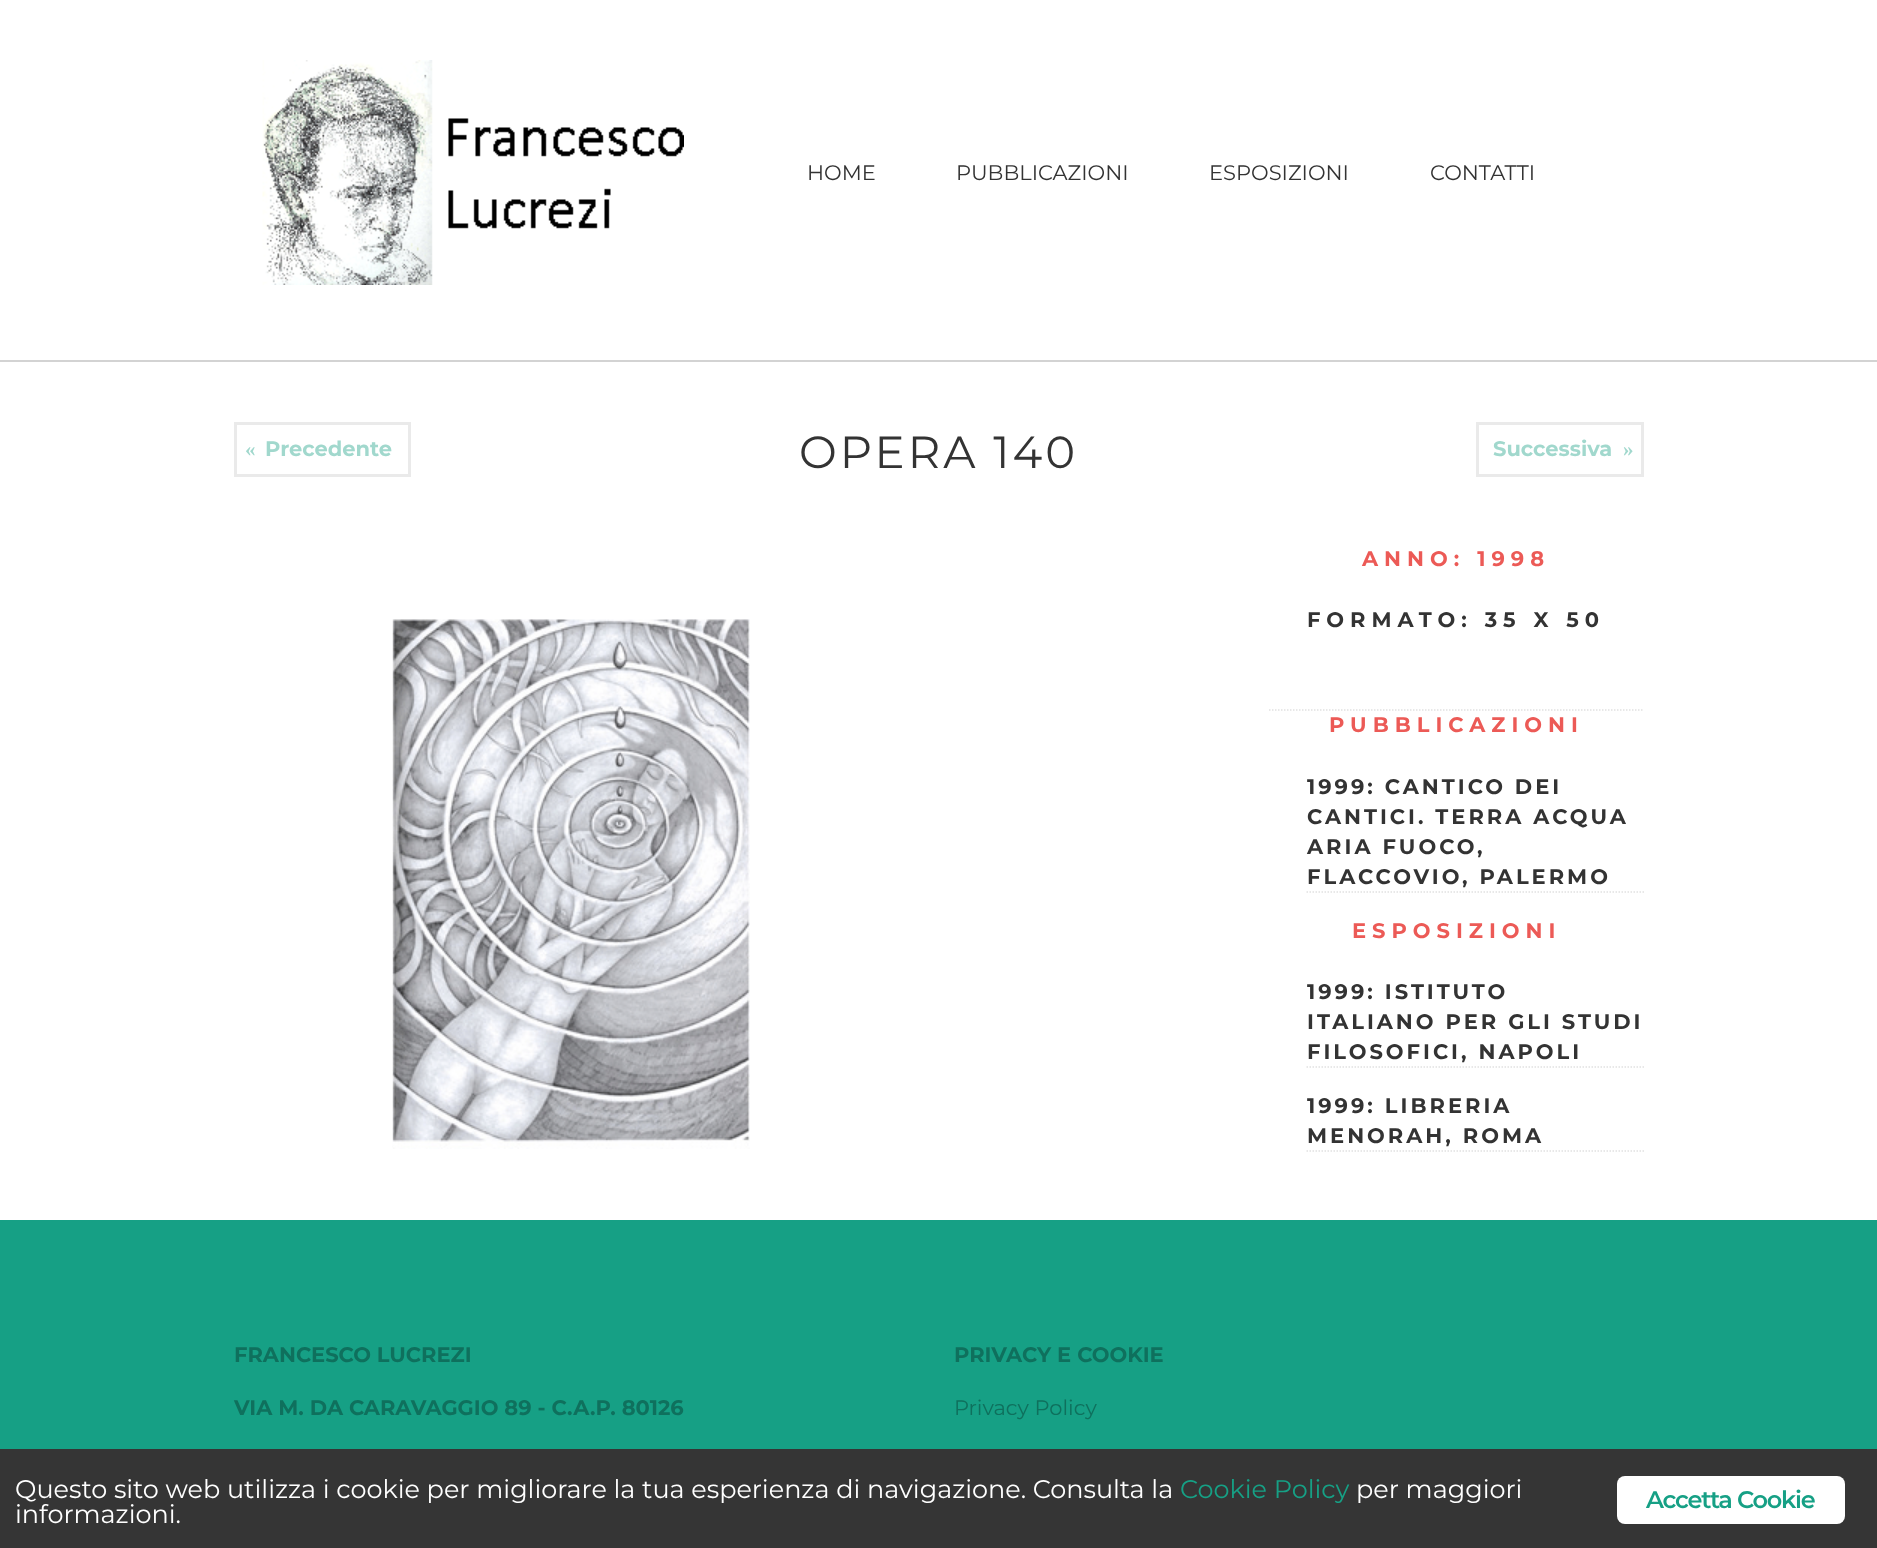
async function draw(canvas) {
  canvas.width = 1877
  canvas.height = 1548
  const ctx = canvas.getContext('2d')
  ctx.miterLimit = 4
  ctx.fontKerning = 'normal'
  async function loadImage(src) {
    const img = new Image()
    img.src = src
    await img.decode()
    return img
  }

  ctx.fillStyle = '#fff'
  ctx.fillRect(0, 0, 1877, 1548)
  ctx.fillStyle = '#d3d3d3'
  ctx.fillRect(0, 360, 1877, 2)
  ctx.drawImage(await loadImage('image0.png'), 262, 60, 422, 225)
  ctx.font = '21px Montserrat'
  ctx.fillStyle = '#333'
  ctx.fillText('HOME', 807, 180)
  ctx.fillText('PUBBLICAZIONI', 956, 180)
  ctx.fillText('ESPOSIZIONI', 1209, 180)
  ctx.fillText('CONTATTI', 1430, 180)
  ctx.letterSpacing = '3px'
  ctx.font = '45px Montserrat'
  ctx.fillText('OPERA 140', 799, 468)
  ctx.drawImage(await loadImage('image1.png'), 392, 619, 358, 530)
  ctx.letterSpacing = '6px'
  ctx.font = 'bold 21px Montserrat'
  ctx.fillStyle = '#ec5a56'
  ctx.fillText('ANNO: 1998', 1362, 566)
  ctx.fillStyle = '#333'
  ctx.fillText('FORMATO: 35 X 50', 1307, 627)
  ctx.beginPath()
  ctx.moveTo(1269, 710)
  ctx.lineTo(1644, 710)
  ctx.strokeStyle = '#e1e1e1'
  ctx.lineWidth = 1.5
  ctx.setLineDash([1.5, 1.5])
  ctx.stroke()
  ctx.fillStyle = '#ec5a56'
  ctx.fillText('PUBBLICAZIONI', 1329, 732)
  ctx.beginPath()
  ctx.moveTo(1306.5, 892)
  ctx.lineTo(1644, 892)
  ctx.stroke()
  ctx.letterSpacing = '3px'
  ctx.fillStyle = '#333'
  ctx.fillText('1999: CANTICO DEI', 1307, 794)
  ctx.fillText('CANTICI. TERRA ACQUA', 1307, 824)
  ctx.fillText('ARIA FUOCO,', 1307, 854)
  ctx.fillText('FLACCOVIO, PALERMO', 1307, 884)
  ctx.letterSpacing = '6px'
  ctx.fillStyle = '#ec5a56'
  ctx.fillText('ESPOSIZIONI', 1352, 938)
  ctx.beginPath()
  ctx.moveTo(1306.5, 1067)
  ctx.lineTo(1644, 1067)
  ctx.stroke()
  ctx.letterSpacing = '3px'
  ctx.fillStyle = '#333'
  ctx.fillText('1999: ISTITUTO', 1307, 999)
  ctx.fillText('ITALIANO PER GLI STUDI', 1307, 1029)
  ctx.fillText('FILOSOFICI, NAPOLI', 1307, 1059)
  ctx.beginPath()
  ctx.moveTo(1306.5, 1151)
  ctx.lineTo(1644, 1151)
  ctx.stroke()
  ctx.fillText('1999: LIBRERIA', 1307, 1113)
  ctx.fillText('MENORAH, ROMA', 1307, 1143)
  ctx.strokeStyle = '#eaeaea'
  ctx.lineWidth = 3
  ctx.setLineDash([])
  ctx.strokeRect(235.5, 423.5, 174, 52)
  ctx.letterSpacing = '0px'
  ctx.font = 'bold 21px Liberation Serif'
  ctx.fillStyle = '#a1d8cd'
  ctx.fillText('«', 245, 456)
  ctx.font = 'bold 21px Montserrat'
  ctx.fillText('Precedente', 265, 456)
  ctx.strokeRect(1477.5, 423.5, 165, 52)
  ctx.fillText('Successiva', 1493, 456)
  ctx.font = 'bold 21px Liberation Serif'
  ctx.fillText('»', 1623, 456)
  ctx.fillStyle = '#16a085'
  ctx.fillRect(0, 1220, 1877, 229)
  ctx.font = 'bold 21px Montserrat'
  ctx.fillStyle = '#0f705d'
  ctx.fillText('FRANCESCO LUCREZI', 234, 1362)
  ctx.fillText('VIA M. DA CARAVAGGIO 89 - C.A.P. 80126', 234, 1415)
  ctx.fillText('PRIVACY E COOKIE', 954, 1362)
  ctx.font = '21px Montserrat'
  ctx.fillText('Privacy Policy', 954, 1415)
  ctx.fillStyle = '#353535'
  ctx.fillRect(0, 1449, 1877, 99)
  ctx.font = '25.5px Montserrat'
  ctx.fillStyle = '#fff'
  ctx.fillText('Questo sito web utilizza i cookie per migliorare la tua esperienza di navigazione. Consulta la', 15, 1498)
  ctx.fillStyle = '#16a085'
  ctx.fillText('Cookie Policy', 1180, 1498)
  ctx.fillStyle = '#fff'
  ctx.fillText('per maggiori', 1356, 1498)
  ctx.fillText('informazioni.', 15, 1523)
  ctx.beginPath()
  ctx.roundRect(1617, 1476, 228, 48, 8)
  ctx.fill()
  ctx.letterSpacing = '-1.25px'
  ctx.font = '600 24px Montserrat'
  ctx.fillStyle = '#16a085'
  ctx.fillText('Accetta Cookie', 1646, 1508)
}

draw(document.querySelector('canvas'))
